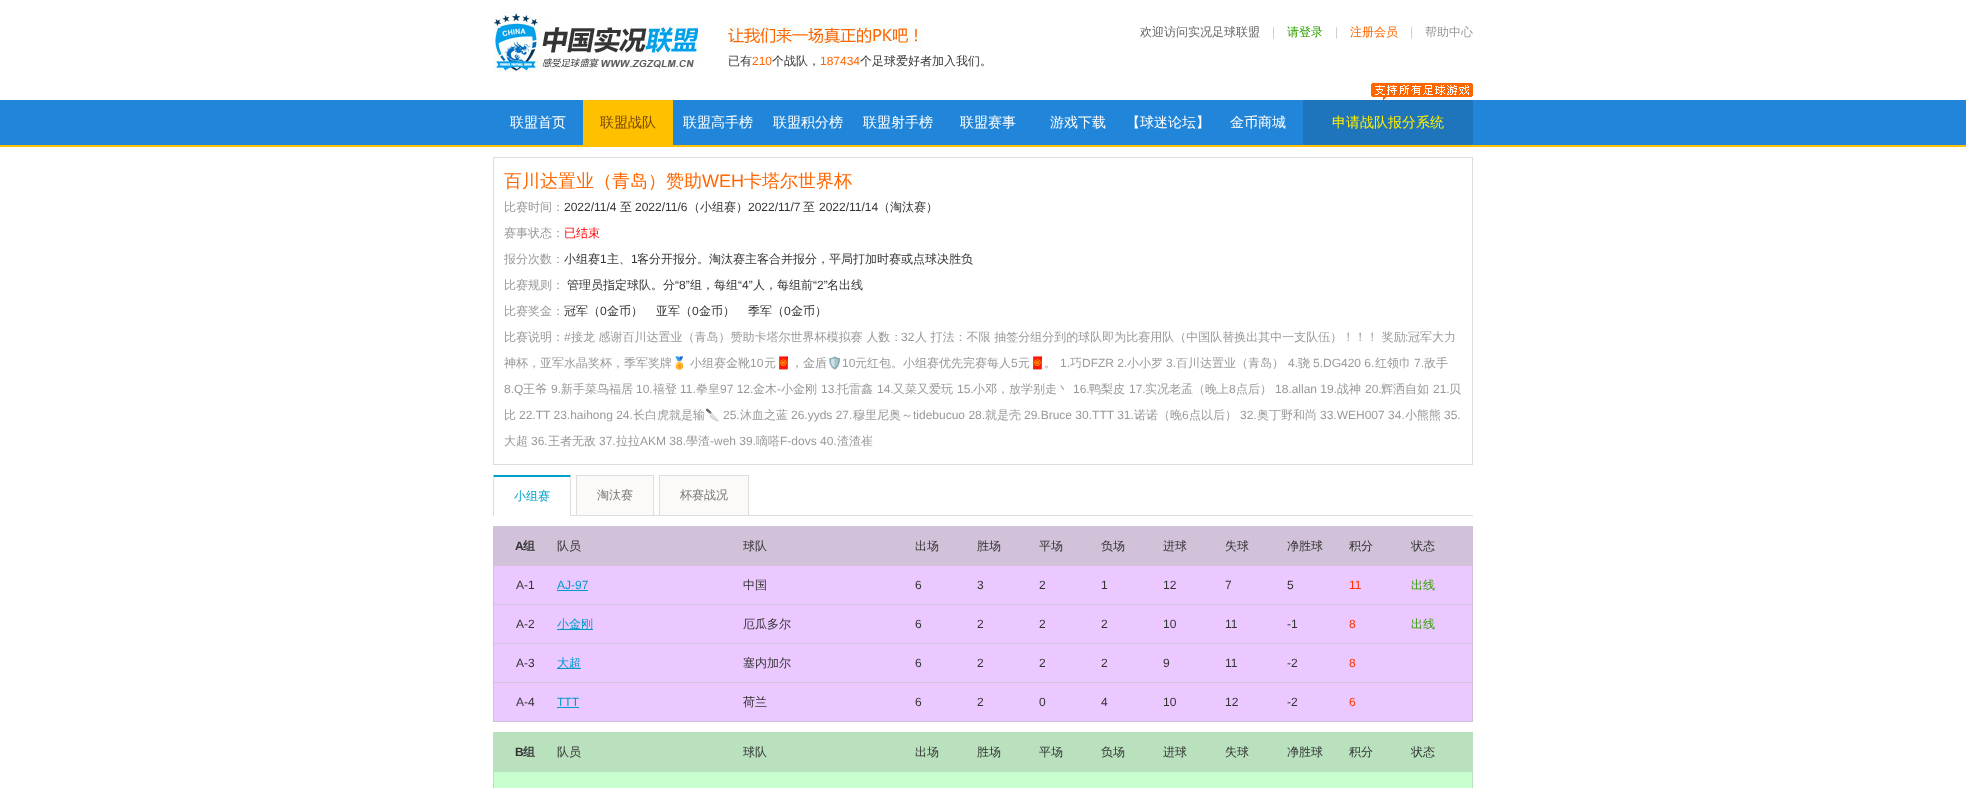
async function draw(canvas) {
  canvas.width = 1966
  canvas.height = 788
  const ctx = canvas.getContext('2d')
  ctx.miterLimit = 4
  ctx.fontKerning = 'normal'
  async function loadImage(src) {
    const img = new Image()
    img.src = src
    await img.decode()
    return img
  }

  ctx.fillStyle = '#fff'
  ctx.fillRect(0, 0, 1966, 788)
  ctx.drawImage(await loadImage('image0.png'), 493, 8, 205, 64)
  ctx.font = '500 12px WenQuanYi Zen Hei'
  ctx.fillStyle = '#666'
  ctx.fillText('欢迎访问实况足球联盟', 1140, 36)
  ctx.font = '12px Liberation Sans'
  ctx.fillStyle = '#ccc'
  ctx.fillText('|', 1272, 36)
  ctx.font = '500 12px WenQuanYi Zen Hei'
  ctx.fillStyle = '#31a000'
  ctx.fillText('请登录', 1287, 36)
  ctx.font = '12px Liberation Sans'
  ctx.fillStyle = '#ccc'
  ctx.fillText('|', 1335, 36)
  ctx.font = '500 12px WenQuanYi Zen Hei'
  ctx.fillStyle = '#f60'
  ctx.fillText('注册会员', 1350, 36)
  ctx.font = '12px Liberation Sans'
  ctx.fillStyle = '#ccc'
  ctx.fillText('|', 1410, 36)
  ctx.font = '500 12px WenQuanYi Zen Hei'
  ctx.fillStyle = '#999'
  ctx.fillText('帮助中心', 1425, 36)
  ctx.drawImage(await loadImage('image1.png'), 728, 24, 194, 24)
  ctx.fillStyle = '#333'
  ctx.fillText('已有', 728, 65)
  ctx.font = '12px Liberation Sans'
  ctx.fillStyle = '#f60'
  ctx.fillText('210', 752, 65)
  ctx.font = '500 12px WenQuanYi Zen Hei'
  ctx.fillStyle = '#333'
  ctx.fillText('个战队，', 772, 65)
  ctx.font = '12px Liberation Sans'
  ctx.fillStyle = '#f60'
  ctx.fillText('187434', 820, 65)
  ctx.font = '500 12px WenQuanYi Zen Hei'
  ctx.fillStyle = '#333'
  ctx.fillText('个足球爱好者加入我们。', 860, 65)
  ctx.fillStyle = '#2186da'
  ctx.fillRect(0, 100, 1966, 45)
  ctx.fillStyle = '#ffc000'
  ctx.fillRect(0, 145, 1966, 2)
  ctx.font = '500 14px WenQuanYi Zen Hei'
  ctx.fillStyle = '#fff'
  ctx.fillText('联盟首页', 510, 127)
  ctx.fillStyle = '#ffc000'
  ctx.fillRect(583, 100, 90, 45)
  ctx.fillStyle = '#754800'
  ctx.fillText('联盟战队', 600, 127)
  ctx.fillStyle = '#fff'
  ctx.fillText('联盟高手榜', 683, 127)
  ctx.fillText('联盟积分榜', 773, 127)
  ctx.fillText('联盟射手榜', 863, 127)
  ctx.fillText('联盟赛事', 960, 127)
  ctx.fillText('游戏下载', 1050, 127)
  ctx.fillText('【球迷论坛】', 1126, 127)
  ctx.fillText('金币商城', 1230, 127)
  ctx.drawImage(await loadImage('image2.png'), 1371, 83, 102, 17)
  ctx.fillStyle = '#1e75bc'
  ctx.fillRect(1303, 100, 170, 45)
  ctx.fillStyle = '#fff000'
  ctx.fillText('申请战队报分系统', 1332, 127)
  ctx.strokeStyle = '#ddd'
  ctx.strokeRect(493.5, 157.5, 979, 307)
  ctx.font = '500 18px WenQuanYi Zen Hei'
  ctx.fillStyle = '#f60'
  ctx.fillText('百川达置业（青岛）赞助', 504, 187)
  ctx.font = '18px Liberation Sans'
  ctx.fillText('WEH', 702, 187)
  ctx.font = '500 18px WenQuanYi Zen Hei'
  ctx.fillText('卡塔尔世界杯', 744, 187)
  ctx.font = '500 12px WenQuanYi Zen Hei'
  ctx.fillStyle = '#999'
  ctx.fillText('比赛时间：', 504, 211)
  ctx.font = '12px Liberation Sans'
  ctx.fillStyle = '#333'
  ctx.fillText('2022/11/4', 564, 211)
  ctx.font = '500 12px WenQuanYi Zen Hei'
  ctx.fillText('至', 620, 211)
  ctx.font = '12px Liberation Sans'
  ctx.fillText('2022/11/6', 635, 211)
  ctx.font = '500 12px WenQuanYi Zen Hei'
  ctx.fillText('（小组赛）', 688, 211)
  ctx.font = '12px Liberation Sans'
  ctx.fillText('2022/11/7', 748, 211)
  ctx.font = '500 12px WenQuanYi Zen Hei'
  ctx.fillText('至', 803, 211)
  ctx.font = '12px Liberation Sans'
  ctx.fillText('2022/11/14', 819, 211)
  ctx.font = '500 12px WenQuanYi Zen Hei'
  ctx.fillText('（淘汰赛）', 878, 211)
  ctx.fillStyle = '#999'
  ctx.fillText('赛事状态：', 504, 237)
  ctx.fillStyle = '#f00'
  ctx.fillText('已结束', 564, 237)
  ctx.fillStyle = '#999'
  ctx.fillText('报分次数：', 504, 263)
  ctx.fillStyle = '#333'
  ctx.fillText('小组赛', 564, 263)
  ctx.font = '12px Liberation Sans'
  ctx.fillText('1', 600, 263)
  ctx.font = '500 12px WenQuanYi Zen Hei'
  ctx.fillText('主、', 607, 263)
  ctx.font = '12px Liberation Sans'
  ctx.fillText('1', 631, 263)
  ctx.font = '500 12px WenQuanYi Zen Hei'
  ctx.fillText('客分开报分。淘汰赛主客合并报分，平局打加时赛或点球决胜负', 637, 263)
  ctx.fillStyle = '#999'
  ctx.fillText('比赛规则：', 504, 289)
  ctx.fillStyle = '#333'
  ctx.fillText('管理员指定球队。分', 567, 289)
  ctx.font = '12px Liberation Sans'
  ctx.fillText('“8”', 675, 289)
  ctx.font = '500 12px WenQuanYi Zen Hei'
  ctx.fillText('组，每组', 690, 289)
  ctx.font = '12px Liberation Sans'
  ctx.fillText('“4”', 738, 289)
  ctx.font = '500 12px WenQuanYi Zen Hei'
  ctx.fillText('人，每组前', 753, 289)
  ctx.font = '12px Liberation Sans'
  ctx.fillText('“2”', 813, 289)
  ctx.font = '500 12px WenQuanYi Zen Hei'
  ctx.fillText('名出线', 827, 289)
  ctx.fillStyle = '#999'
  ctx.fillText('比赛奖金：', 504, 315)
  ctx.fillStyle = '#333'
  ctx.fillText('冠军（', 564, 315)
  ctx.font = '12px Liberation Sans'
  ctx.fillText('0', 600, 315)
  ctx.font = '500 12px WenQuanYi Zen Hei'
  ctx.fillText('金币）', 607, 315)
  ctx.fillText('亚军（', 656, 315)
  ctx.font = '12px Liberation Sans'
  ctx.fillText('0', 692, 315)
  ctx.font = '500 12px WenQuanYi Zen Hei'
  ctx.fillText('金币）', 699, 315)
  ctx.fillText('季军（', 748, 315)
  ctx.font = '12px Liberation Sans'
  ctx.fillText('0', 784, 315)
  ctx.font = '500 12px WenQuanYi Zen Hei'
  ctx.fillText('金币）', 791, 315)
  ctx.fillStyle = '#999'
  ctx.fillText('比赛说明：', 504, 341)
  ctx.font = '12px Liberation Sans'
  ctx.fillText('#', 564, 341)
  ctx.font = '500 12px WenQuanYi Zen Hei'
  ctx.fillText('接龙 感谢百川达置业（青岛）赞助卡塔尔世界杯模拟赛 人数：', 571, 341)
  ctx.font = '12px Liberation Sans'
  ctx.fillText('32', 901, 341)
  ctx.font = '500 12px WenQuanYi Zen Hei'
  ctx.fillText('人 打法：不限 抽签分组分到的球队即为比赛用队（中国队替换出其中一支队伍）！！！ 奖励', 915, 341)
  ctx.font = '12px Liberation Sans'
  ctx.fillText(':', 1405, 341)
  ctx.font = '500 12px WenQuanYi Zen Hei'
  ctx.fillText('冠军大力', 1408, 341)
  ctx.fillText('神杯，亚军水晶奖杯，季军奖牌', 504, 367)
  ctx.font = '12px Noto Color Emoji'
  ctx.fillText('🏅', 672, 367)
  ctx.font = '500 12px WenQuanYi Zen Hei'
  ctx.fillText('小组赛金靴', 690, 367)
  ctx.font = '12px Liberation Sans'
  ctx.fillText('10', 750, 367)
  ctx.font = '500 12px WenQuanYi Zen Hei'
  ctx.fillText('元', 764, 367)
  ctx.font = '12px Noto Color Emoji'
  ctx.fillText('🧧', 776, 367)
  ctx.font = '500 12px WenQuanYi Zen Hei'
  ctx.fillText('，金盾', 791, 367)
  ctx.font = '12px Noto Color Emoji'
  ctx.fillText('🛡️', 827, 367)
  ctx.font = '12px Liberation Sans'
  ctx.fillText('10', 842, 367)
  ctx.font = '500 12px WenQuanYi Zen Hei'
  ctx.fillText('元红包。小组赛优先完赛每人', 855, 367)
  ctx.font = '12px Liberation Sans'
  ctx.fillText('5', 1011, 367)
  ctx.font = '500 12px WenQuanYi Zen Hei'
  ctx.fillText('元', 1018, 367)
  ctx.font = '12px Noto Color Emoji'
  ctx.fillText('🧧', 1030, 367)
  ctx.font = '500 12px WenQuanYi Zen Hei'
  ctx.fillText('。', 1044, 367)
  ctx.font = '12px Liberation Sans'
  ctx.fillText('1.', 1060, 367)
  ctx.font = '500 12px WenQuanYi Zen Hei'
  ctx.fillText('巧', 1070, 367)
  ctx.font = '12px Liberation Sans'
  ctx.fillText('DFZR 2.', 1082, 367)
  ctx.font = '500 12px WenQuanYi Zen Hei'
  ctx.fillText('小小罗', 1127, 367)
  ctx.font = '12px Liberation Sans'
  ctx.fillText('3.', 1166, 367)
  ctx.font = '500 12px WenQuanYi Zen Hei'
  ctx.fillText('百川达置业（青岛）', 1176, 367)
  ctx.font = '12px Liberation Sans'
  ctx.fillText('4.', 1288, 367)
  ctx.font = '500 12px WenQuanYi Zen Hei'
  ctx.fillText('骁', 1298, 367)
  ctx.font = '12px Liberation Sans'
  ctx.fillText('5.DG420 6.', 1313, 367)
  ctx.font = '500 12px WenQuanYi Zen Hei'
  ctx.fillText('红领巾', 1375, 367)
  ctx.font = '12px Liberation Sans'
  ctx.fillText('7.', 1414, 367)
  ctx.font = '500 12px WenQuanYi Zen Hei'
  ctx.fillText('敌手', 1424, 367)
  ctx.font = '12px Liberation Sans'
  ctx.fillText('8.Q', 504, 393)
  ctx.font = '500 12px WenQuanYi Zen Hei'
  ctx.fillText('王爷', 523, 393)
  ctx.font = '12px Liberation Sans'
  ctx.fillText('9.', 551, 393)
  ctx.font = '500 12px WenQuanYi Zen Hei'
  ctx.fillText('新手菜鸟福居', 561, 393)
  ctx.font = '12px Liberation Sans'
  ctx.fillText('10.', 636, 393)
  ctx.font = '500 12px WenQuanYi Zen Hei'
  ctx.fillText('禧登', 653, 393)
  ctx.font = '12px Liberation Sans'
  ctx.fillText('11.', 680, 393)
  ctx.font = '500 12px WenQuanYi Zen Hei'
  ctx.fillText('拳皇', 696, 393)
  ctx.font = '12px Liberation Sans'
  ctx.fillText('97 12.', 720, 393)
  ctx.font = '500 12px WenQuanYi Zen Hei'
  ctx.fillText('金木', 753, 393)
  ctx.font = '12px Liberation Sans'
  ctx.fillText('-', 777, 393)
  ctx.font = '500 12px WenQuanYi Zen Hei'
  ctx.fillText('小金刚', 781, 393)
  ctx.font = '12px Liberation Sans'
  ctx.fillText('13.', 821, 393)
  ctx.font = '500 12px WenQuanYi Zen Hei'
  ctx.fillText('托雷鑫', 837, 393)
  ctx.font = '12px Liberation Sans'
  ctx.fillText('14.', 877, 393)
  ctx.font = '500 12px WenQuanYi Zen Hei'
  ctx.fillText('又菜又爱玩', 893, 393)
  ctx.font = '12px Liberation Sans'
  ctx.fillText('15.', 957, 393)
  ctx.font = '500 12px WenQuanYi Zen Hei'
  ctx.fillText('小邓，放学别走丶', 973, 393)
  ctx.font = '12px Liberation Sans'
  ctx.fillText('16.', 1073, 393)
  ctx.font = '500 12px WenQuanYi Zen Hei'
  ctx.fillText('鸭梨皮', 1089, 393)
  ctx.font = '12px Liberation Sans'
  ctx.fillText('17.', 1129, 393)
  ctx.font = '500 12px WenQuanYi Zen Hei'
  ctx.fillText('实况老孟（晚上', 1145, 393)
  ctx.font = '12px Liberation Sans'
  ctx.fillText('8', 1229, 393)
  ctx.font = '500 12px WenQuanYi Zen Hei'
  ctx.fillText('点后）', 1236, 393)
  ctx.font = '12px Liberation Sans'
  ctx.fillText('18.allan 19.', 1275, 393)
  ctx.font = '500 12px WenQuanYi Zen Hei'
  ctx.fillText('战神', 1337, 393)
  ctx.font = '12px Liberation Sans'
  ctx.fillText('20.', 1365, 393)
  ctx.font = '500 12px WenQuanYi Zen Hei'
  ctx.fillText('辉洒自如', 1381, 393)
  ctx.font = '12px Liberation Sans'
  ctx.fillText('21.', 1433, 393)
  ctx.font = '500 12px WenQuanYi Zen Hei'
  ctx.fillText('贝', 1449, 393)
  ctx.fillText('比', 504, 419)
  ctx.font = '12px Liberation Sans'
  ctx.fillText('22.TT 23.haihong 24.', 519, 419)
  ctx.font = '500 12px WenQuanYi Zen Hei'
  ctx.fillText('长白虎就是输', 633, 419)
  ctx.font = '12px Noto Color Emoji'
  ctx.fillText('🔪', 705, 419)
  ctx.font = '12px Liberation Sans'
  ctx.fillText('25.', 723, 419)
  ctx.font = '500 12px WenQuanYi Zen Hei'
  ctx.fillText('沐血之蓝', 740, 419)
  ctx.font = '12px Liberation Sans'
  ctx.fillText('26.yyds 27.', 791, 419)
  ctx.font = '500 12px WenQuanYi Zen Hei'
  ctx.fillText('穆里尼奥～', 853, 419)
  ctx.font = '12px Liberation Sans'
  ctx.fillText('tidebucuo 28.', 913, 419)
  ctx.font = '500 12px WenQuanYi Zen Hei'
  ctx.fillText('就是壳', 985, 419)
  ctx.font = '12px Liberation Sans'
  ctx.fillText('29.Bruce 30.TTT 31.', 1024, 419)
  ctx.font = '500 12px WenQuanYi Zen Hei'
  ctx.fillText('诺诺（晚', 1134, 419)
  ctx.font = '12px Liberation Sans'
  ctx.fillText('6', 1182, 419)
  ctx.font = '500 12px WenQuanYi Zen Hei'
  ctx.fillText('点以后）', 1189, 419)
  ctx.font = '12px Liberation Sans'
  ctx.fillText('32.', 1240, 419)
  ctx.font = '500 12px WenQuanYi Zen Hei'
  ctx.fillText('奥丁野和尚', 1257, 419)
  ctx.font = '12px Liberation Sans'
  ctx.fillText('33.WEH007 34.', 1320, 419)
  ctx.font = '500 12px WenQuanYi Zen Hei'
  ctx.fillText('小熊熊', 1405, 419)
  ctx.font = '12px Liberation Sans'
  ctx.fillText('35.', 1444, 419)
  ctx.font = '500 12px WenQuanYi Zen Hei'
  ctx.fillText('大超', 504, 445)
  ctx.font = '12px Liberation Sans'
  ctx.fillText('36.', 531, 445)
  ctx.font = '500 12px WenQuanYi Zen Hei'
  ctx.fillText('王者无敌', 548, 445)
  ctx.font = '12px Liberation Sans'
  ctx.fillText('37.', 599, 445)
  ctx.font = '500 12px WenQuanYi Zen Hei'
  ctx.fillText('拉拉', 616, 445)
  ctx.font = '12px Liberation Sans'
  ctx.fillText('AKM 38.', 640, 445)
  ctx.font = '500 12px WenQuanYi Zen Hei'
  ctx.fillText('學渣', 686, 445)
  ctx.font = '12px Liberation Sans'
  ctx.fillText('-weh 39.', 710, 445)
  ctx.font = '500 12px WenQuanYi Zen Hei'
  ctx.fillText('嘀嗒', 756, 445)
  ctx.font = '12px Liberation Sans'
  ctx.fillText('F-dovs 40.', 780, 445)
  ctx.font = '500 12px WenQuanYi Zen Hei'
  ctx.fillText('渣渣崔', 837, 445)
  ctx.fillStyle = '#ddd'
  ctx.fillRect(571, 515, 902, 1)
  ctx.fillStyle = '#00a2ca'
  ctx.beginPath()
  ctx.moveTo(493, 475)
  ctx.lineTo(571, 475)
  ctx.lineTo(570, 477)
  ctx.lineTo(494, 477)
  ctx.closePath()
  ctx.fill()
  ctx.fillStyle = '#ddd'
  ctx.beginPath()
  ctx.moveTo(571, 475)
  ctx.lineTo(571, 516)
  ctx.lineTo(570, 516)
  ctx.lineTo(570, 477)
  ctx.closePath()
  ctx.fill()
  ctx.beginPath()
  ctx.moveTo(493, 516)
  ctx.lineTo(493, 475)
  ctx.lineTo(494, 477)
  ctx.lineTo(494, 516)
  ctx.closePath()
  ctx.fill()
  ctx.fillStyle = '#00a2ca'
  ctx.fillText('小组赛', 514, 500)
  ctx.fillStyle = '#fbfaf8'
  ctx.fillRect(577, 476, 76, 39)
  ctx.fillStyle = '#ddd'
  ctx.fillRect(576, 475, 78, 1)
  ctx.fillRect(653, 475, 1, 40)
  ctx.fillRect(576, 475, 1, 40)
  ctx.fillStyle = '#777'
  ctx.fillText('淘汰赛', 597, 499)
  ctx.fillStyle = '#fbfaf8'
  ctx.fillRect(660, 476, 88, 39)
  ctx.fillStyle = '#ddd'
  ctx.fillRect(659, 475, 90, 1)
  ctx.fillRect(748, 475, 1, 40)
  ctx.fillRect(659, 475, 1, 40)
  ctx.fillStyle = '#777'
  ctx.fillText('杯赛战况', 680, 499)
  ctx.fillStyle = '#d1c2da'
  ctx.fillRect(1472, 526, 1, 196)
  ctx.fillRect(493, 526, 1, 196)
  ctx.fillRect(494, 527, 978, 39)
  ctx.font = 'bold 12px Liberation Sans'
  ctx.fillStyle = '#333'
  ctx.fillText('A', 515, 550)
  ctx.font = 'bold 12px WenQuanYi Zen Hei'
  ctx.fillText('组', 523, 550)
  ctx.font = '500 12px WenQuanYi Zen Hei'
  ctx.fillText('队员', 557, 550)
  ctx.fillText('球队', 743, 550)
  ctx.fillText('出场', 915, 550)
  ctx.fillText('胜场', 977, 550)
  ctx.fillText('平场', 1039, 550)
  ctx.fillText('负场', 1101, 550)
  ctx.fillText('进球', 1163, 550)
  ctx.fillText('失球', 1225, 550)
  ctx.fillText('净胜球', 1287, 550)
  ctx.fillText('积分', 1349, 550)
  ctx.fillStyle = '#d1c2da'
  ctx.fillRect(493, 526, 980, 1)
  ctx.fillStyle = '#333'
  ctx.fillText('状态', 1411, 550)
  ctx.fillStyle = '#ebc8ff'
  ctx.fillRect(494, 566, 978, 38)
  ctx.font = '12px Liberation Sans'
  ctx.fillStyle = '#333'
  ctx.fillText('A-1', 516, 589)
  ctx.fillStyle = '#09c'
  ctx.fillText('AJ-97', 557, 589)
  ctx.fillRect(557, 590, 31, 1)
  ctx.font = '500 12px WenQuanYi Zen Hei'
  ctx.fillStyle = '#333'
  ctx.fillText('中国', 743, 589)
  ctx.font = '12px Liberation Sans'
  ctx.fillText('6', 915, 589)
  ctx.fillText('3', 977, 589)
  ctx.fillText('2', 1039, 589)
  ctx.fillText('1', 1101, 589)
  ctx.fillText('12', 1163, 589)
  ctx.fillText('7', 1225, 589)
  ctx.fillText('5', 1287, 589)
  ctx.fillStyle = '#f30'
  ctx.fillText('11', 1349, 589)
  ctx.font = '500 12px WenQuanYi Zen Hei'
  ctx.fillStyle = '#31a000'
  ctx.fillText('出线', 1411, 589)
  ctx.fillStyle = '#ebc8ff'
  ctx.fillRect(494, 605, 978, 38)
  ctx.font = '12px Liberation Sans'
  ctx.fillStyle = '#333'
  ctx.fillText('A-2', 516, 628)
  ctx.fillStyle = '#09c'
  ctx.fillRect(557, 629, 36, 1)
  ctx.font = '500 12px WenQuanYi Zen Hei'
  ctx.fillText('小金刚', 557, 628)
  ctx.fillStyle = '#333'
  ctx.fillText('厄瓜多尔', 743, 628)
  ctx.font = '12px Liberation Sans'
  ctx.fillText('6', 915, 628)
  ctx.fillText('2', 977, 628)
  ctx.fillText('2', 1039, 628)
  ctx.fillText('2', 1101, 628)
  ctx.fillText('10', 1163, 628)
  ctx.fillText('11', 1225, 628)
  ctx.fillText('-1', 1287, 628)
  ctx.fillStyle = '#f30'
  ctx.fillText('8', 1349, 628)
  ctx.fillStyle = '#d1c2da'
  ctx.fillRect(493, 604, 980, 1)
  ctx.font = '500 12px WenQuanYi Zen Hei'
  ctx.fillStyle = '#31a000'
  ctx.fillText('出线', 1411, 628)
  ctx.fillStyle = '#d1c2da'
  ctx.fillRect(493, 643, 980, 1)
  ctx.fillStyle = '#ebc8ff'
  ctx.fillRect(494, 644, 978, 38)
  ctx.font = '12px Liberation Sans'
  ctx.fillStyle = '#333'
  ctx.fillText('A-3', 516, 667)
  ctx.fillStyle = '#09c'
  ctx.fillRect(557, 668, 24, 1)
  ctx.font = '500 12px WenQuanYi Zen Hei'
  ctx.fillText('大超', 557, 667)
  ctx.fillStyle = '#333'
  ctx.fillText('塞内加尔', 743, 667)
  ctx.font = '12px Liberation Sans'
  ctx.fillText('6', 915, 667)
  ctx.fillText('2', 977, 667)
  ctx.fillText('2', 1039, 667)
  ctx.fillText('2', 1101, 667)
  ctx.fillText('9', 1163, 667)
  ctx.fillText('11', 1225, 667)
  ctx.fillText('-2', 1287, 667)
  ctx.fillStyle = '#f30'
  ctx.fillText('8', 1349, 667)
  ctx.fillStyle = '#d1c2da'
  ctx.fillRect(493, 682, 980, 1)
  ctx.fillRect(493, 721, 980, 1)
  ctx.fillStyle = '#ebc8ff'
  ctx.fillRect(494, 683, 978, 38)
  ctx.fillStyle = '#333'
  ctx.fillText('A-4', 516, 706)
  ctx.fillStyle = '#09c'
  ctx.fillText('TTT', 557, 706)
  ctx.fillRect(557, 707, 22, 1)
  ctx.font = '500 12px WenQuanYi Zen Hei'
  ctx.fillStyle = '#333'
  ctx.fillText('荷兰', 743, 706)
  ctx.font = '12px Liberation Sans'
  ctx.fillText('6', 915, 706)
  ctx.fillText('2', 977, 706)
  ctx.fillText('0', 1039, 706)
  ctx.fillText('4', 1101, 706)
  ctx.fillText('10', 1163, 706)
  ctx.fillText('12', 1225, 706)
  ctx.fillText('-2', 1287, 706)
  ctx.fillStyle = '#f30'
  ctx.fillText('6', 1349, 706)
  ctx.fillStyle = '#b9e1be'
  ctx.fillRect(1472, 732, 1, 56)
  ctx.fillRect(493, 732, 1, 56)
  ctx.fillRect(494, 733, 978, 39)
  ctx.font = 'bold 12px Liberation Sans'
  ctx.fillStyle = '#333'
  ctx.fillText('B', 515, 756)
  ctx.font = 'bold 12px WenQuanYi Zen Hei'
  ctx.fillText('组', 523, 756)
  ctx.font = '500 12px WenQuanYi Zen Hei'
  ctx.fillText('队员', 557, 756)
  ctx.fillText('球队', 743, 756)
  ctx.fillText('出场', 915, 756)
  ctx.fillText('胜场', 977, 756)
  ctx.fillText('平场', 1039, 756)
  ctx.fillText('负场', 1101, 756)
  ctx.fillText('进球', 1163, 756)
  ctx.fillText('失球', 1225, 756)
  ctx.fillText('净胜球', 1287, 756)
  ctx.fillText('积分', 1349, 756)
  ctx.fillStyle = '#b9e1be'
  ctx.fillRect(493, 732, 980, 1)
  ctx.fillStyle = '#333'
  ctx.fillText('状态', 1411, 756)
  ctx.fillStyle = '#c8ffce'
  ctx.fillRect(494, 772, 978, 16)
}

draw(document.querySelector('canvas'))
